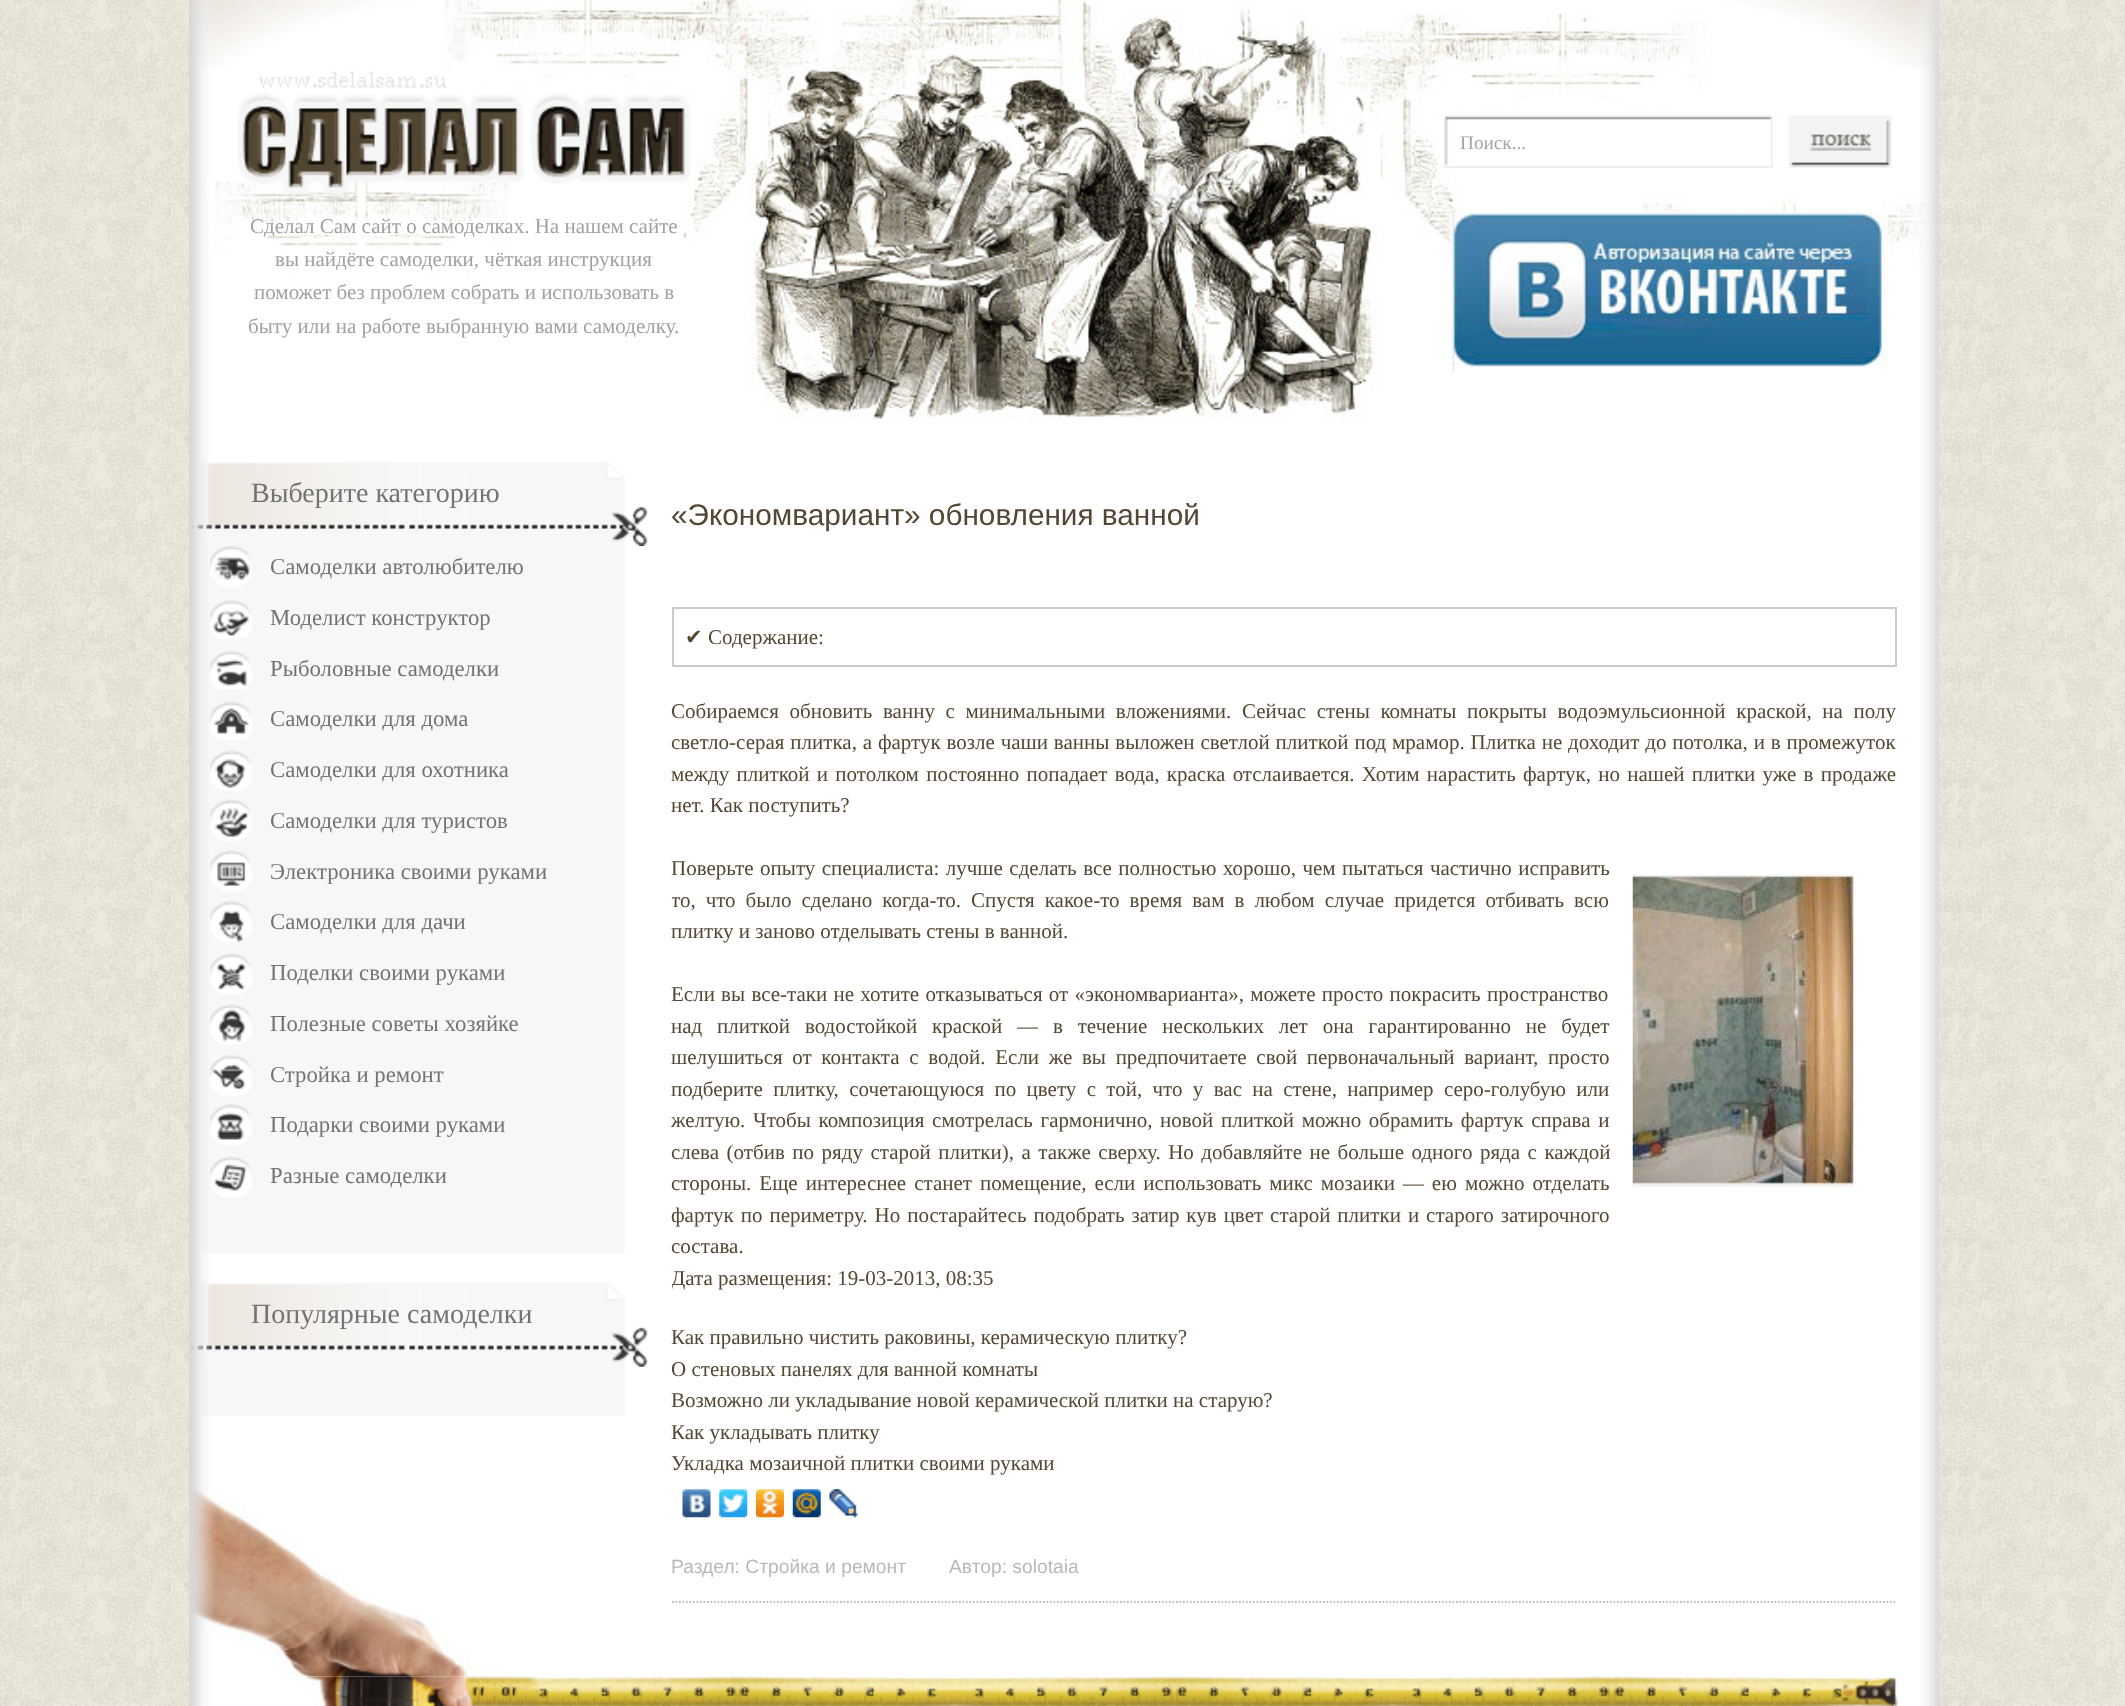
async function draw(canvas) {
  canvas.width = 2125
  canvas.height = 1706
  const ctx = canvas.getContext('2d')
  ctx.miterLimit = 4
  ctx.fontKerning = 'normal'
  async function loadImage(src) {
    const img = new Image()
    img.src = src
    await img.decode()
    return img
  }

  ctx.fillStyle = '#fff'
  ctx.fillRect(0, 0, 2125, 1706)
  ctx.drawImage(await loadImage('image0.png'), 0, 0, 2125, 1706)
  ctx.drawImage(await loadImage('image1.png'), 189, 0, 1750, 1706)
  ctx.drawImage(await loadImage('image2.png'), 193, 0, 1743, 420)
  ctx.drawImage(await loadImage('image3.png'), 238, 71, 453, 124)
  ctx.drawImage(await loadImage('image4.png'), 1443, 115, 330, 53)
  ctx.font = '19.25px Liberation Serif'
  ctx.fillStyle = '#a7a39d'
  ctx.fillText('Поиск...', 1460, 149)
  ctx.drawImage(await loadImage('image5.png'), 1788, 115, 104, 53)
  ctx.font = '21px Liberation Serif'
  ctx.fillStyle = '#a1a1a1'
  ctx.fillText('Сделал Сам сайт о самоделках. На нашем сайте', 250, 233)
  ctx.fillText('вы найдёте самоделки, чёткая инструкция', 275, 266)
  ctx.fillText('поможет без проблем собрать и использовать в', 254, 299)
  ctx.fillText('быту или на работе выбранную вами самоделку.', 248, 333)
  ctx.drawImage(await loadImage('image6.png'), 1450, 211, 439, 160)
  ctx.drawImage(await loadImage('image7.png'), 191, 1489, 321, 188)
  ctx.drawImage(await loadImage('image8.png'), 191, 462, 457, 84)
  ctx.font = '28px Liberation Serif'
  ctx.fillStyle = '#737373'
  ctx.fillText('Выберите категорию', 251, 502)
  ctx.drawImage(await loadImage('image9.png'), 203, 546, 422, 707)
  ctx.drawImage(await loadImage('image10.png'), 210, 546, 42, 42)
  ctx.font = '22.75px Liberation Serif'
  ctx.fillText('Самоделки автолюбителю', 270, 574)
  ctx.drawImage(await loadImage('image11.png'), 210, 600, 42, 39)
  ctx.fillText('Моделист конструктор', 270, 625)
  ctx.drawImage(await loadImage('image12.png'), 210, 651, 42, 39)
  ctx.fillText('Рыболовные самоделки', 270, 676)
  ctx.drawImage(await loadImage('image13.png'), 210, 701, 42, 39)
  ctx.fillText('Самоделки для дома', 270, 726)
  ctx.drawImage(await loadImage('image14.png'), 210, 750, 42, 41)
  ctx.fillText('Самоделки для охотника', 270, 777)
  ctx.drawImage(await loadImage('image15.png'), 210, 799, 42, 43)
  ctx.fillText('Самоделки для туристов', 270, 828)
  ctx.drawImage(await loadImage('image16.png'), 210, 850, 42, 42)
  ctx.fillText('Электроника своими руками', 270, 879)
  ctx.drawImage(await loadImage('image17.png'), 210, 901, 42, 42)
  ctx.fillText('Самоделки для дачи', 270, 929)
  ctx.drawImage(await loadImage('image18.png'), 210, 953, 42, 41)
  ctx.fillText('Поделки своими руками', 270, 980)
  ctx.drawImage(await loadImage('image19.png'), 210, 1004, 42, 41)
  ctx.fillText('Полезные советы хозяйке', 270, 1031)
  ctx.drawImage(await loadImage('image20.png'), 210, 1055, 42, 41)
  ctx.fillText('Стройка и ремонт', 270, 1082)
  ctx.drawImage(await loadImage('image21.png'), 210, 1104, 42, 42)
  ctx.fillText('Подарки своими руками', 270, 1132)
  ctx.drawImage(await loadImage('image22.png'), 210, 1156, 42, 41)
  ctx.fillText('Разные самоделки', 270, 1183)
  ctx.drawImage(await loadImage('image23.png'), 191, 1283, 457, 84)
  ctx.font = '28px Liberation Serif'
  ctx.fillText('Популярные самоделки', 251, 1323)
  ctx.drawImage(await loadImage('image24.png'), 203, 1367, 422, 49)
  ctx.beginPath()
  ctx.moveTo(672, 1602)
  ctx.lineTo(1897, 1602)
  ctx.strokeStyle = '#c1c1c1'
  ctx.lineWidth = 1.8
  ctx.setLineDash([1.75, 1.75])
  ctx.stroke()
  ctx.font = '29.75px Liberation Sans'
  ctx.fillStyle = '#534733'
  ctx.fillText('«Экономвариант» обновления ванной', 671, 525)
  ctx.strokeStyle = '#cacaca'
  ctx.lineWidth = 2
  ctx.setLineDash([])
  ctx.strokeRect(673, 608, 1223, 58)
  ctx.font = '21px DejaVu Sans'
  ctx.fillText('✔', 685, 644)
  ctx.font = '21px Liberation Serif'
  ctx.fillText('Содержание:', 708, 644)
  ctx.wordSpacing = '5.4px'
  ctx.fillText('Собираемся обновить ванну с минимальными вложениями. Сейчас стены комнаты покрыты водоэмульсионной краской, на полу', 671, 718)
  ctx.wordSpacing = '0.6px'
  ctx.fillText('светло-серая плитка, а фартук возле чаши ванны выложен светлой плиткой под мрамор. Плитка не доходит до потолка, и в промежуток', 671, 749)
  ctx.wordSpacing = '2px'
  ctx.fillText('между плиткой и потолком постоянно попадает вода, краска отслаивается. Хотим нарастить фартук, но нашей плитки уже в продаже', 671, 781)
  ctx.wordSpacing = '0px'
  ctx.fillText('нет. Как поступить?', 671, 812)
  ctx.wordSpacing = '1.25px'
  ctx.fillText('Поверьте опыту специалиста: лучше сделать все полностью хорошо, чем пытаться частично исправить', 671, 875)
  ctx.save()
  ctx.beginPath()
  ctx.rect(672, 490, 1225, 1111)
  ctx.clip()
  ctx.wordSpacing = '4.75px'
  ctx.fillText('то, что было сделано когда-то. Спустя какое-то время вам в любом случае придется отбивать всю', 671, 907)
  ctx.restore()
  ctx.drawImage(await loadImage('image25.png'), 1632, 875, 222, 312)
  ctx.wordSpacing = '0px'
  ctx.fillText('плитку и заново отделывать стены в ванной.', 671, 938)
  ctx.wordSpacing = '1px'
  ctx.fillText('Если вы все-таки не хотите отказываться от «экономварианта», можете просто покрасить пространство', 671, 1001)
  ctx.wordSpacing = '9.6px'
  ctx.fillText('над плиткой водостойкой краской — в течение нескольких лет она гарантированно не будет', 671, 1033)
  ctx.wordSpacing = '4.4px'
  ctx.fillText('шелушиться от контакта с водой. Если же вы предпочитаете свой первоначальный вариант, просто', 671, 1064)
  ctx.wordSpacing = '5.1px'
  ctx.fillText('подберите плитку, сочетающуюся по цвету с той, что у вас на стене, например серо-голубую или', 671, 1096)
  ctx.wordSpacing = '2.4px'
  ctx.fillText('желтую. Чтобы композиция смотрелась гармонично, новой плиткой можно обрамить фартук справа и', 671, 1127)
  ctx.wordSpacing = '2.25px'
  ctx.fillText('слева (отбив по ряду старой плитки), а также сверху. Но добавляйте не больше одного ряда с каждой', 671, 1159)
  ctx.wordSpacing = '2.75px'
  ctx.fillText('стороны. Еще интереснее станет помещение, если использовать микс мозаики — ею можно отделать', 671, 1190)
  ctx.wordSpacing = '1.7px'
  ctx.fillText('фартук по периметру. Но постарайтесь подобрать затир кув цвет старой плитки и старого затирочного', 671, 1222)
  ctx.wordSpacing = '0px'
  ctx.fillText('состава.', 671, 1253)
  ctx.save()
  ctx.beginPath()
  ctx.rect(672, 490, 1225, 1111)
  ctx.clip()
  ctx.fillText('Дата размещения: 19-03-2013, 08:35', 671, 1285)
  ctx.restore()
  ctx.fillText('Как правильно чистить раковины, керамическую плитку?', 671, 1344)
  ctx.fillText('О стеновых панелях для ванной комнаты', 671, 1376)
  ctx.fillText('Возможно ли укладывание новой керамической плитки на старую?', 671, 1407)
  ctx.fillText('Как укладывать плитку', 671, 1439)
  ctx.fillText('Укладка мозаичной плитки своими руками', 671, 1470)
  ctx.drawImage(await loadImage('image26.png'), 682, 1489, 29, 29)
  ctx.drawImage(await loadImage('image27.png'), 719, 1489, 29, 29)
  ctx.drawImage(await loadImage('image28.png'), 756, 1489, 28, 29)
  ctx.drawImage(await loadImage('image29.png'), 792, 1489, 29, 29)
  ctx.drawImage(await loadImage('image30.png'), 829, 1489, 29, 29)
  ctx.font = '19.25px Liberation Sans'
  ctx.fillStyle = '#b8b8b8'
  ctx.fillText('Раздел: Стройка и ремонт', 671, 1573)
  ctx.fillText('Автор: solotaia', 949, 1573)
  ctx.drawImage(await loadImage('image31.png'), 301, 1676, 1597, 30)
}

draw(document.querySelector('canvas'))
